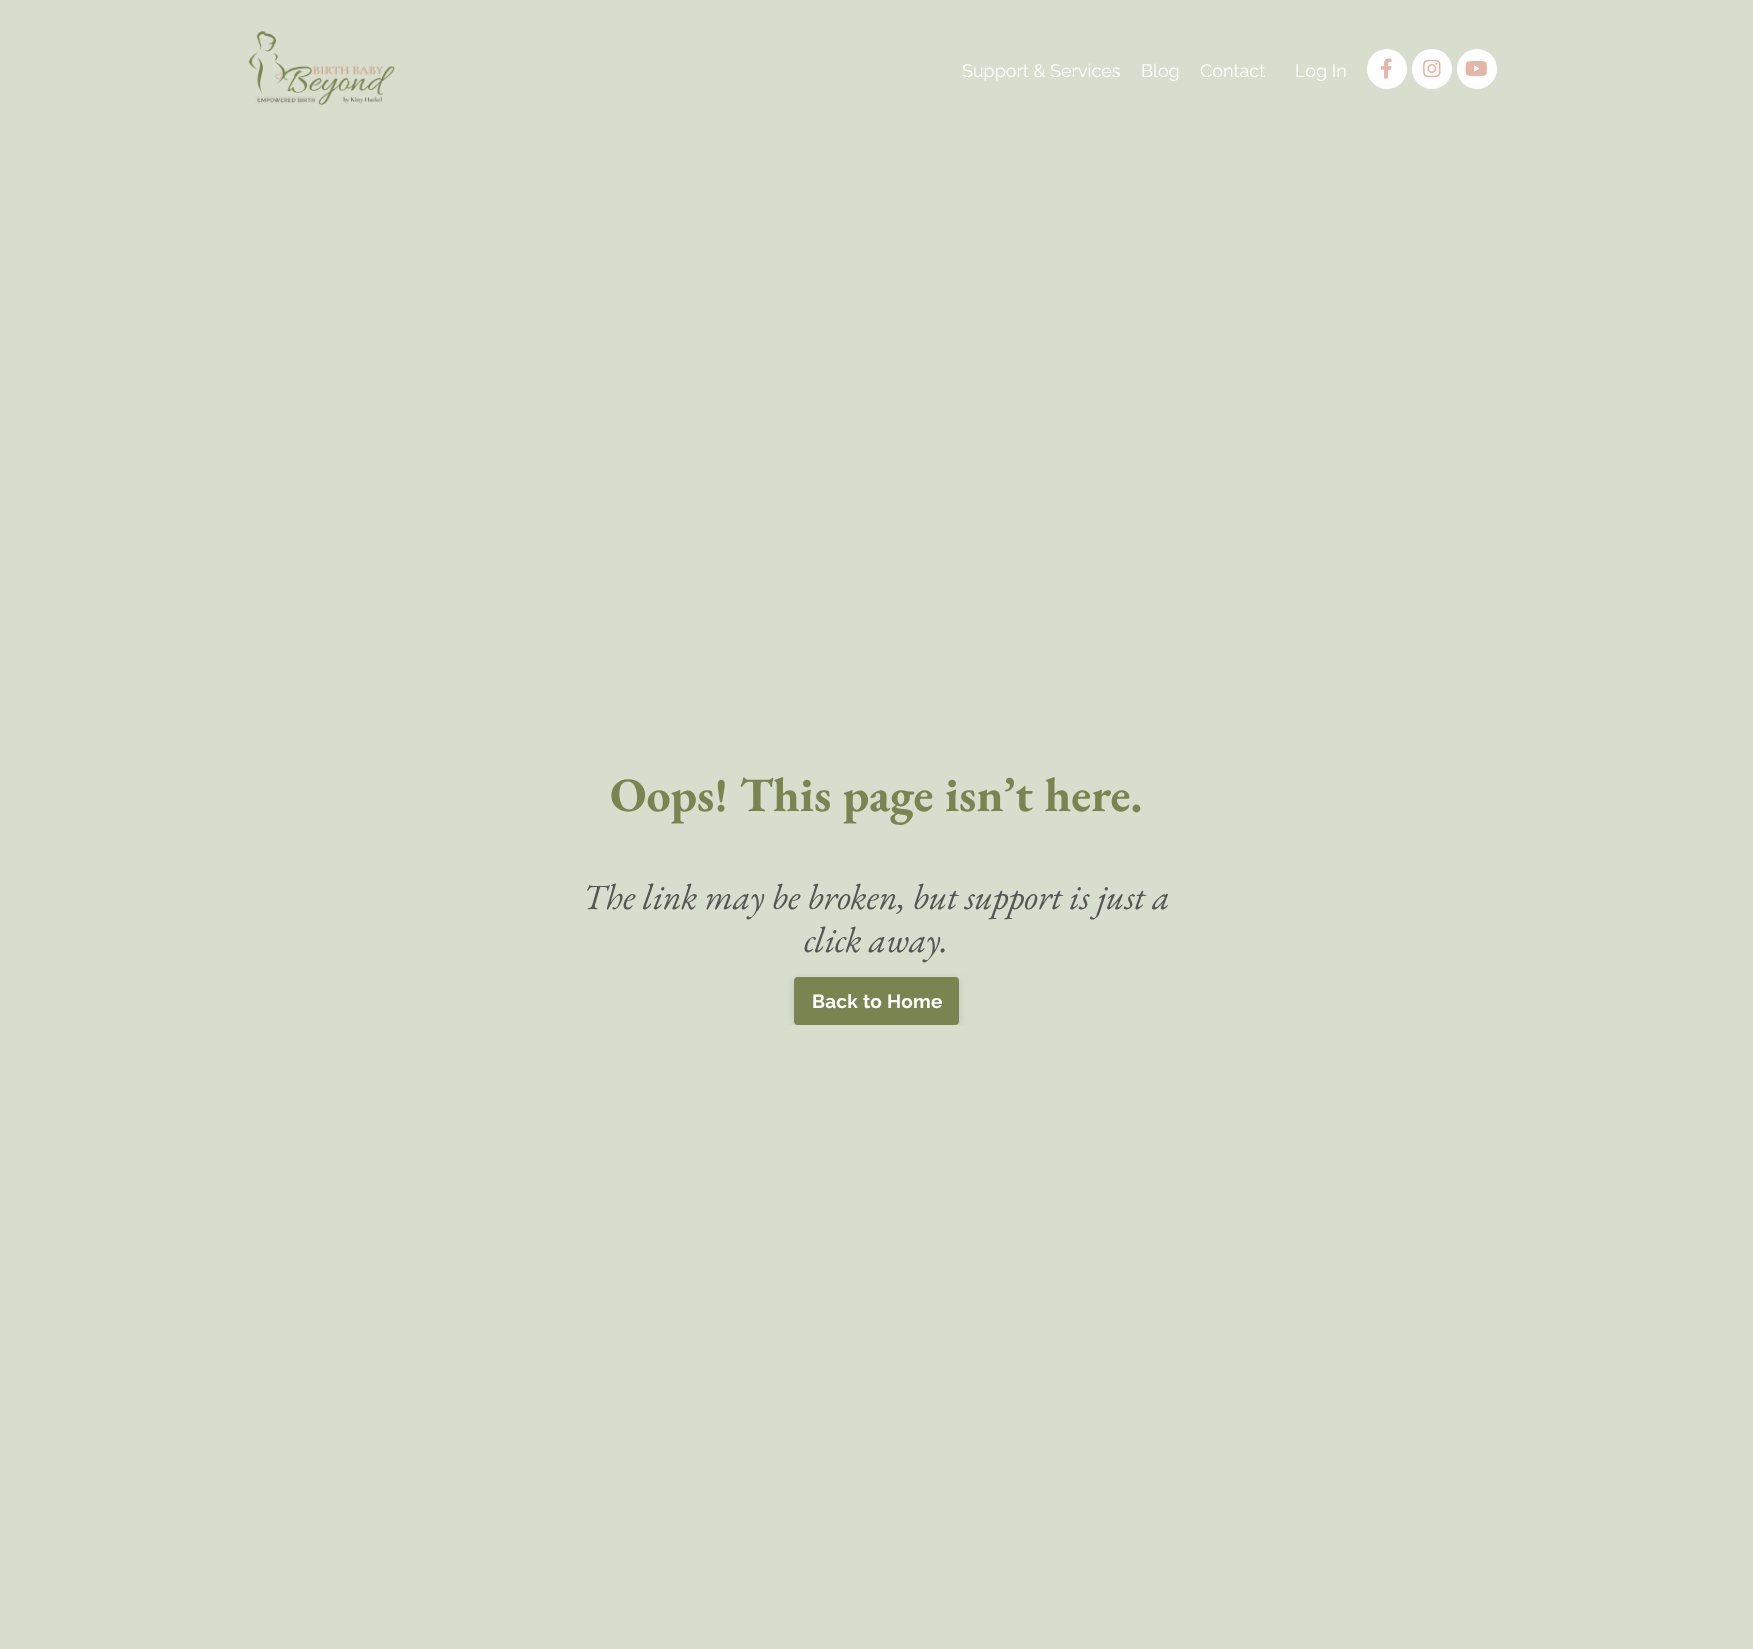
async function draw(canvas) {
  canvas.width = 1753
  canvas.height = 1649
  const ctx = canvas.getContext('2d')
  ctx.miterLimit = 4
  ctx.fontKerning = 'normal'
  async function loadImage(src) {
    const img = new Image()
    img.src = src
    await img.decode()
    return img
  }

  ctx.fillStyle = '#d8decd'
  ctx.fillRect(0, 0, 1753, 1649)
  ctx.drawImage(await loadImage('image0.png'), 248, 31, 147, 74)
  ctx.font = '18px Raleway'
  ctx.fillStyle = '#fff'
  ctx.fillText('Support & Services', 962, 77)
  ctx.fillText('Blog', 1141, 77)
  ctx.fillText('Contact', 1200, 77)
  ctx.fillText('Log In', 1295, 77)
  ctx.beginPath()
  ctx.arc(1387, 69, 20, 0, 2 * Math.PI)
  ctx.fill()
  ctx.drawImage(await loadImage('image1.png'), 1380, 58, 12, 21)
  ctx.beginPath()
  ctx.arc(1432, 69, 20, 0, 2 * Math.PI)
  ctx.fill()
  ctx.drawImage(await loadImage('image2.png'), 1423, 59, 18, 19)
  ctx.beginPath()
  ctx.arc(1477, 69, 20, 0, 2 * Math.PI)
  ctx.fill()
  ctx.drawImage(await loadImage('image3.png'), 1465, 61, 22, 15)
  ctx.font = 'bold 48px EB Garamond'
  ctx.fillStyle = '#7a8450'
  ctx.fillText('Oops! This page isn’t here.', 610, 811)
  ctx.font = 'italic 36px EB Garamond'
  ctx.fillStyle = '#555'
  ctx.fillText('The link may be broken, but support is just a', 583, 909)
  ctx.fillText('click away.', 804, 952)
  ctx.save()
  ctx.beginPath()
  ctx.roundRect(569, 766, 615, 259, 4)
  ctx.clip()
  ctx.fillStyle = '#0000001a'
  ctx.filter = 'blur(5px)'
  ctx.beginPath()
  ctx.roundRect(794, 979, 165, 48, 4)
  ctx.fill()
  ctx.filter = 'none'
  ctx.restore()
  ctx.fillStyle = '#7a8450'
  ctx.beginPath()
  ctx.roundRect(795, 978, 163, 46, 3)
  ctx.fill()
  ctx.strokeStyle = '#7a8450'
  ctx.lineWidth = 2
  ctx.stroke()
  ctx.letterSpacing = '0.25px'
  ctx.font = 'bold 19px Raleway'
  ctx.fillStyle = '#fff'
  ctx.fillText('Back to Home', 812, 1008)
}

draw(document.querySelector('canvas'))
